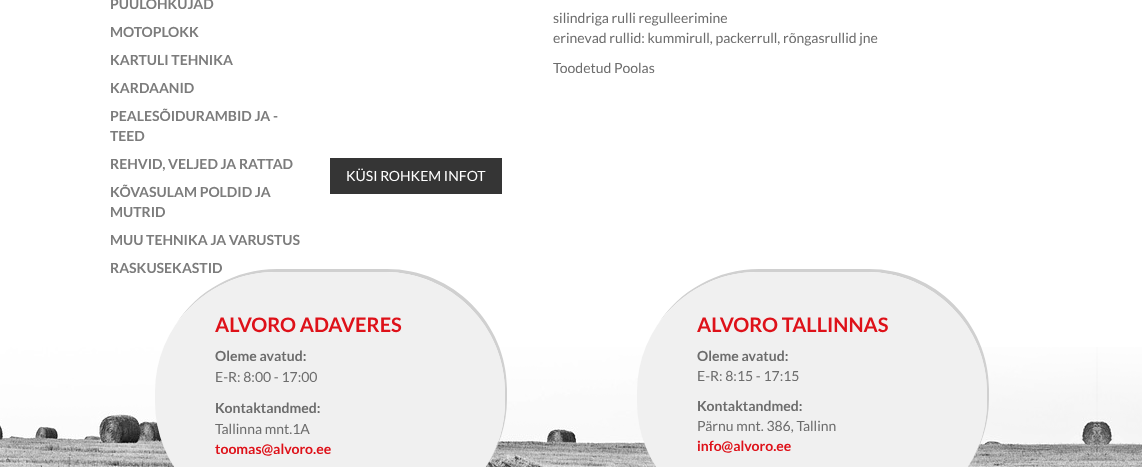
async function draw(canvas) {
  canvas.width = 1142
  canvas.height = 467
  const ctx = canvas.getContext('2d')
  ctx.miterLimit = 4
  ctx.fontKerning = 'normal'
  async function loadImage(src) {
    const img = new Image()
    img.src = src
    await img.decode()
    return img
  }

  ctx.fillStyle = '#fff'
  ctx.fillRect(0, 0, 1142, 467)
  ctx.font = 'bold 14px Lato'
  ctx.fillStyle = '#7c7c7c'
  ctx.fillText('PUULÕHKUJAD', 110, 9)
  ctx.fillText('MOTOPLOKK', 110, 37)
  ctx.fillText('KARTULI TEHNIKA', 110, 65)
  ctx.fillText('KARDAANID', 110, 93)
  ctx.fillText('PEALESÕIDURAMBID JA -', 110, 121)
  ctx.fillText('TEED', 110, 141)
  ctx.fillText('REHVID, VELJED JA RATTAD', 110, 169)
  ctx.fillText('KÕVASULAM POLDID JA', 110, 197)
  ctx.fillText('MUTRID', 110, 217)
  ctx.fillText('MUU TEHNIKA JA VARUSTUS', 110, 245)
  ctx.drawImage(await loadImage('image0.png'), 0, 347, 1142, 120)
  ctx.fillStyle = '#d0d0d0'
  ctx.beginPath()
  ctx.moveTo(277, 269)
  ctx.bezierCurveTo(235, 269, 197, 291, 176, 324)
  ctx.bezierCurveTo(198, 293, 234, 272, 275, 272)
  ctx.lineTo(385, 272)
  ctx.bezierCurveTo(451, 272, 505, 326, 505, 392)
  ctx.lineTo(505, 402)
  ctx.bezierCurveTo(505, 426, 498, 448, 486, 467)
  ctx.bezierCurveTo(499, 448, 507, 424, 507, 399)
  ctx.lineTo(507, 389)
  ctx.bezierCurveTo(507, 323, 453, 269, 387, 269)
  ctx.closePath()
  ctx.fill()
  ctx.fillStyle = '#f0f0f0'
  ctx.beginPath()
  ctx.roundRect(155, 272, 350, 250, 120)
  ctx.fill()
  ctx.fillStyle = '#7c7c7c'
  ctx.fillText('RASKUSEKASTID', 110, 273)
  ctx.font = '14px Lato'
  ctx.fillStyle = '#6c6c6c'
  ctx.fillText('silindriga rulli regulleerimine', 553, 23)
  ctx.fillText('erinevad rullid: kummirull, packerrull, rõngasrullid jne', 553, 43)
  ctx.fillText('Toodetud Poolas', 553, 73)
  ctx.fillStyle = '#353535'
  ctx.fillRect(330, 158, 172, 36)
  ctx.fillStyle = '#fff'
  ctx.fillText('KÜSI ROHKEM INFOT', 346, 181)
  ctx.font = 'bold 20px Lato'
  ctx.fillStyle = '#de1119'
  ctx.fillText('ALVORO ADAVERES', 215, 332)
  ctx.font = 'bold 14px Lato'
  ctx.fillStyle = '#6c6c6c'
  ctx.fillText('Oleme avatud:', 215, 361)
  ctx.font = '14px Lato'
  ctx.fillText('E-R: 8:00 - 17:00', 215, 382)
  ctx.font = 'bold 14px Lato'
  ctx.fillText('Kontaktandmed:', 215, 413)
  ctx.font = '14px Lato'
  ctx.fillText('Tallinna mnt.1A', 215, 434)
  ctx.font = 'bold 14px Lato'
  ctx.fillStyle = '#de1119'
  ctx.fillText('toomas@alvoro.ee', 215, 454)
  ctx.fillStyle = '#d0d0d0'
  ctx.beginPath()
  ctx.moveTo(759, 269)
  ctx.bezierCurveTo(717, 269, 679, 291, 658, 324)
  ctx.bezierCurveTo(680, 293, 716, 272, 757, 272)
  ctx.lineTo(867, 272)
  ctx.bezierCurveTo(933, 272, 987, 326, 987, 392)
  ctx.lineTo(987, 402)
  ctx.bezierCurveTo(987, 426, 980, 448, 968, 467)
  ctx.bezierCurveTo(981, 448, 989, 424, 989, 399)
  ctx.lineTo(989, 389)
  ctx.bezierCurveTo(989, 323, 935, 269, 869, 269)
  ctx.closePath()
  ctx.fill()
  ctx.fillStyle = '#f0f0f0'
  ctx.beginPath()
  ctx.roundRect(637, 272, 350, 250, 120)
  ctx.fill()
  ctx.font = 'bold 20px Lato'
  ctx.fillStyle = '#de1119'
  ctx.fillText('ALVORO TALLINNAS', 697, 332)
  ctx.font = 'bold 14px Lato'
  ctx.fillStyle = '#6c6c6c'
  ctx.fillText('Oleme avatud:', 697, 361)
  ctx.font = '14px Lato'
  ctx.fillText('E-R: 8:15 - 17:15', 697, 381)
  ctx.font = 'bold 14px Lato'
  ctx.fillText('Kontaktandmed:', 697, 411)
  ctx.font = '14px Lato'
  ctx.fillText('Pärnu mnt. 386, Tallinn', 697, 431)
  ctx.font = 'bold 14px Lato'
  ctx.fillStyle = '#de1119'
  ctx.fillText('info@alvoro.ee', 697, 451)
}

draw(document.querySelector('canvas'))
